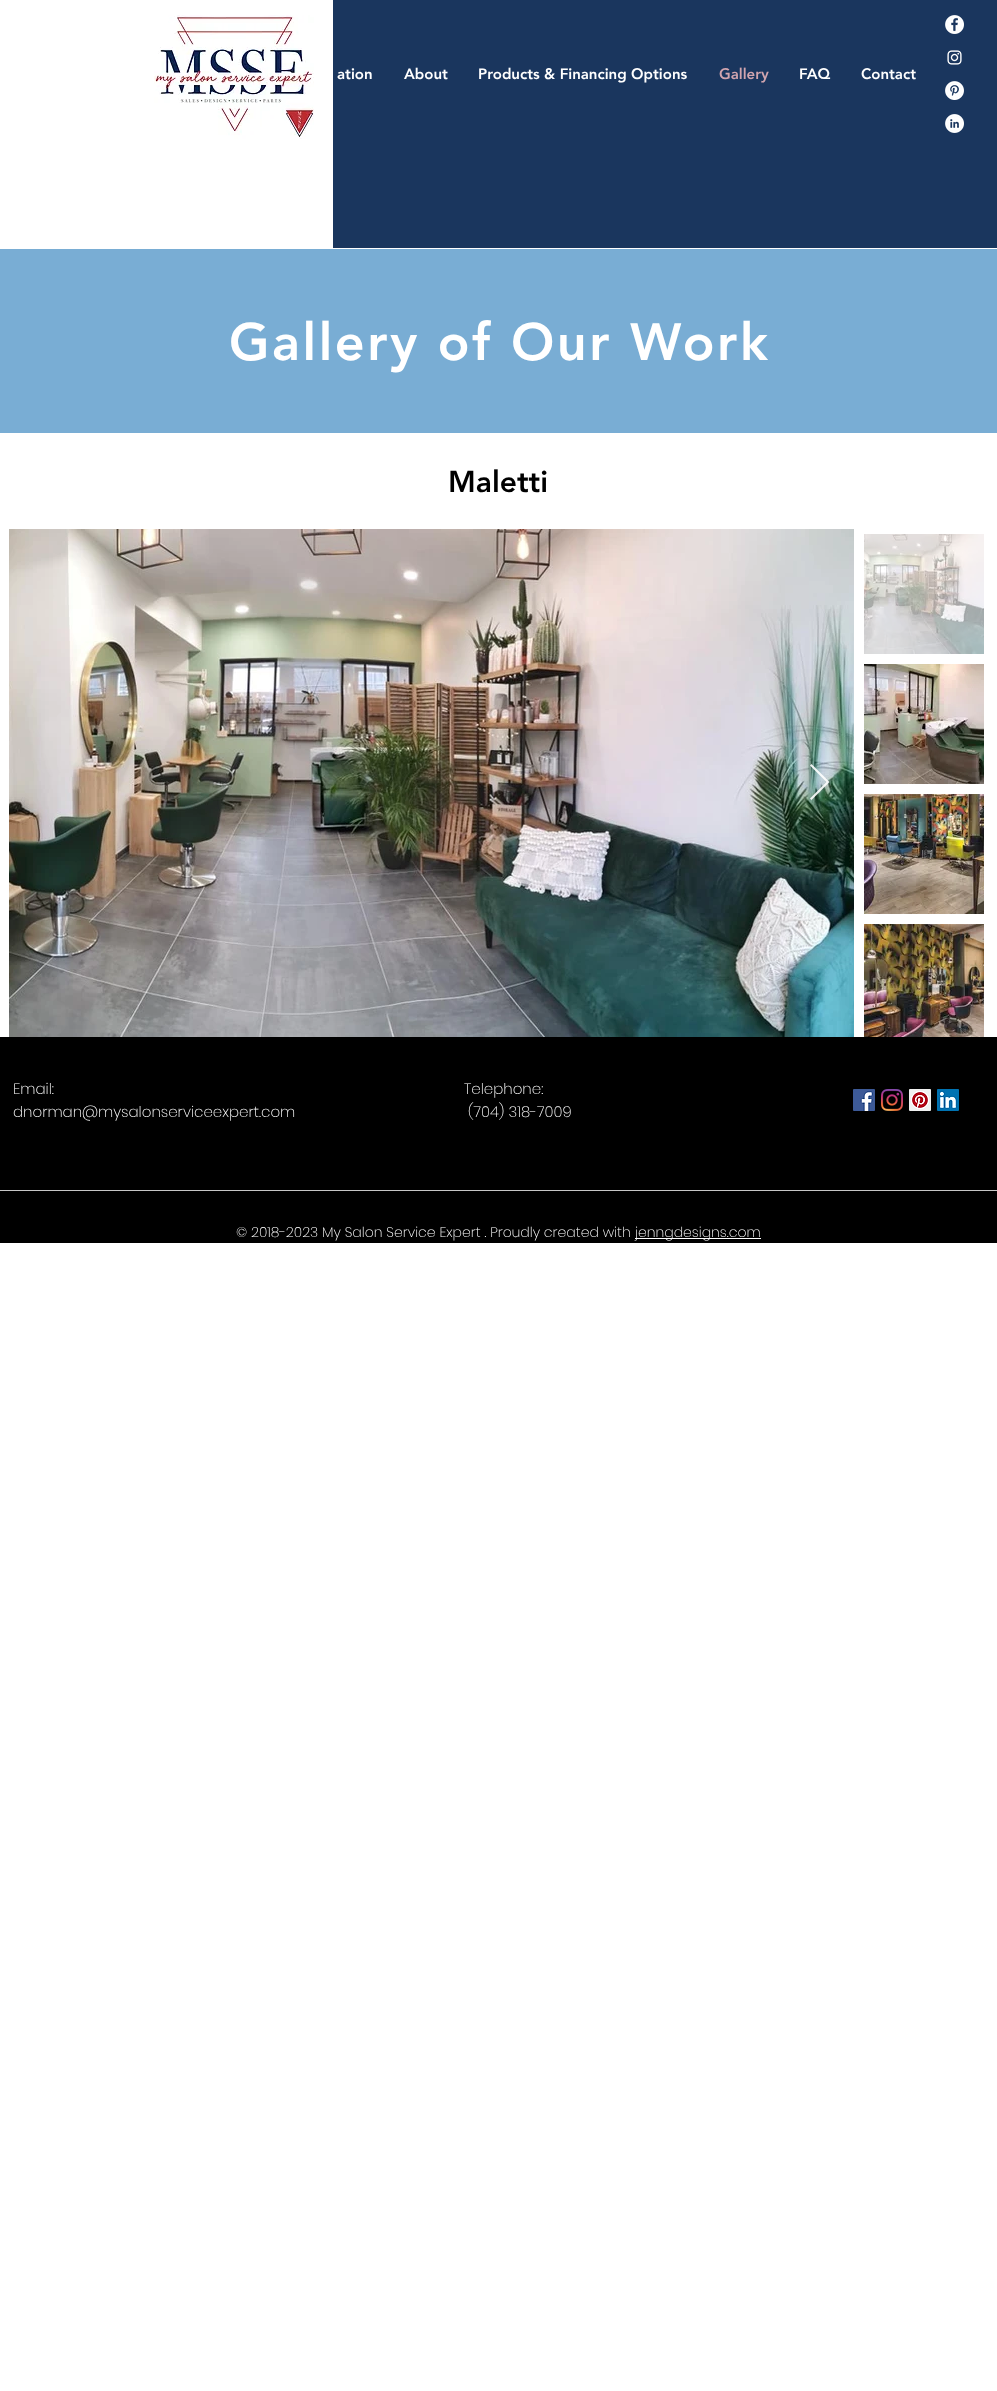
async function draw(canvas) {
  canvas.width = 997
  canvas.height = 2391
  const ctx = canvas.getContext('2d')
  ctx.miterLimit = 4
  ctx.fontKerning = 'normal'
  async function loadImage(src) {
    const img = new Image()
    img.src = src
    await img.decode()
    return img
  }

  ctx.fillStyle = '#fff'
  ctx.fillRect(0, 0, 997, 2391)
  ctx.drawImage(await loadImage('image0.png'), 154, 15, 160, 124)
  ctx.fillStyle = '#1a365e'
  ctx.fillRect(333, 0, 664, 248)
  ctx.font = '900 15px "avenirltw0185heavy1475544"'
  ctx.fillStyle = '#fff'
  ctx.fillText('ation', 337, 79)
  ctx.fillText('About', 404, 79)
  ctx.fillText('Products & Financing Options', 478, 79)
  ctx.fillStyle = '#d1a5af'
  ctx.fillText('Gallery', 719, 79)
  ctx.fillStyle = '#fff'
  ctx.fillText('FAQ', 799, 79)
  ctx.fillText('Contact', 861, 79)
  ctx.drawImage(await loadImage('image1.png'), 945, 15, 19, 19)
  ctx.drawImage(await loadImage('image2.png'), 947, 50, 15, 15)
  ctx.drawImage(await loadImage('image3.png'), 945, 81, 19, 19)
  ctx.drawImage(await loadImage('image4.png'), 945, 114, 19, 19)
  ctx.fillStyle = '#79add4'
  ctx.fillRect(0, 249, 997, 184)
  ctx.letterSpacing = '2.6px'
  ctx.font = '900 52px "avenirltw0185heavy1475544"'
  ctx.fillStyle = '#fff'
  ctx.fillText('Gallery of Our Work', 229, 360)
  ctx.letterSpacing = '0px'
  ctx.font = '900 30px "avenirltw0185heavy1475544"'
  ctx.fillStyle = '#000'
  ctx.fillText('Maletti', 448, 492)
  ctx.drawImage(await loadImage('image5.png'), 9, 529, 845, 508)
  ctx.fillStyle = '#ffffffe6'
  ctx.beginPath()
  ctx.moveTo(810, 765.5)
  ctx.lineTo(811.5, 764)
  ctx.lineTo(829.5, 782)
  ctx.lineTo(811.5, 800)
  ctx.lineTo(810, 798.5)
  ctx.lineTo(826.5, 782)
  ctx.closePath()
  ctx.fill()
  ctx.drawImage(await loadImage('image6.png'), 864, 534, 120, 120)
  ctx.drawImage(await loadImage('image7.png'), 864, 664, 120, 120)
  ctx.drawImage(await loadImage('image8.png'), 864, 794, 120, 120)
  ctx.drawImage(await loadImage('image9.png'), 864, 924, 120, 113)
  ctx.fillStyle = '#000'
  ctx.fillRect(0, 1037, 997, 206)
  ctx.font = '200 15px Poppins'
  ctx.fillStyle = '#fff'
  ctx.fillText('Email:', 13, 1094)
  ctx.fillText('dnorman@mysalonserviceexpert.com', 13, 1117)
  ctx.fillText('Telephone:', 464, 1094)
  ctx.fillText('(704) 318-7009', 468, 1117)
  ctx.drawImage(await loadImage('image10.png'), 853, 1089, 22, 22)
  ctx.drawImage(await loadImage('image11.png'), 881, 1089, 22, 22)
  ctx.drawImage(await loadImage('image12.png'), 909, 1089, 22, 22)
  ctx.drawImage(await loadImage('image13.png'), 937, 1089, 22, 22)
  ctx.fillStyle = '#c7c7c7'
  ctx.fillRect(0, 1190, 997, 1)
  ctx.font = '200 14px Poppins'
  ctx.fillStyle = '#fff'
  ctx.fillText('© 2018-2023 My Salon Service Expert . Proudly created with', 236, 1237)
  ctx.fillRect(635, 1238, 126, 1)
  ctx.fillText('jenngdesigns.com', 635, 1237)
}

draw(document.querySelector('canvas'))
